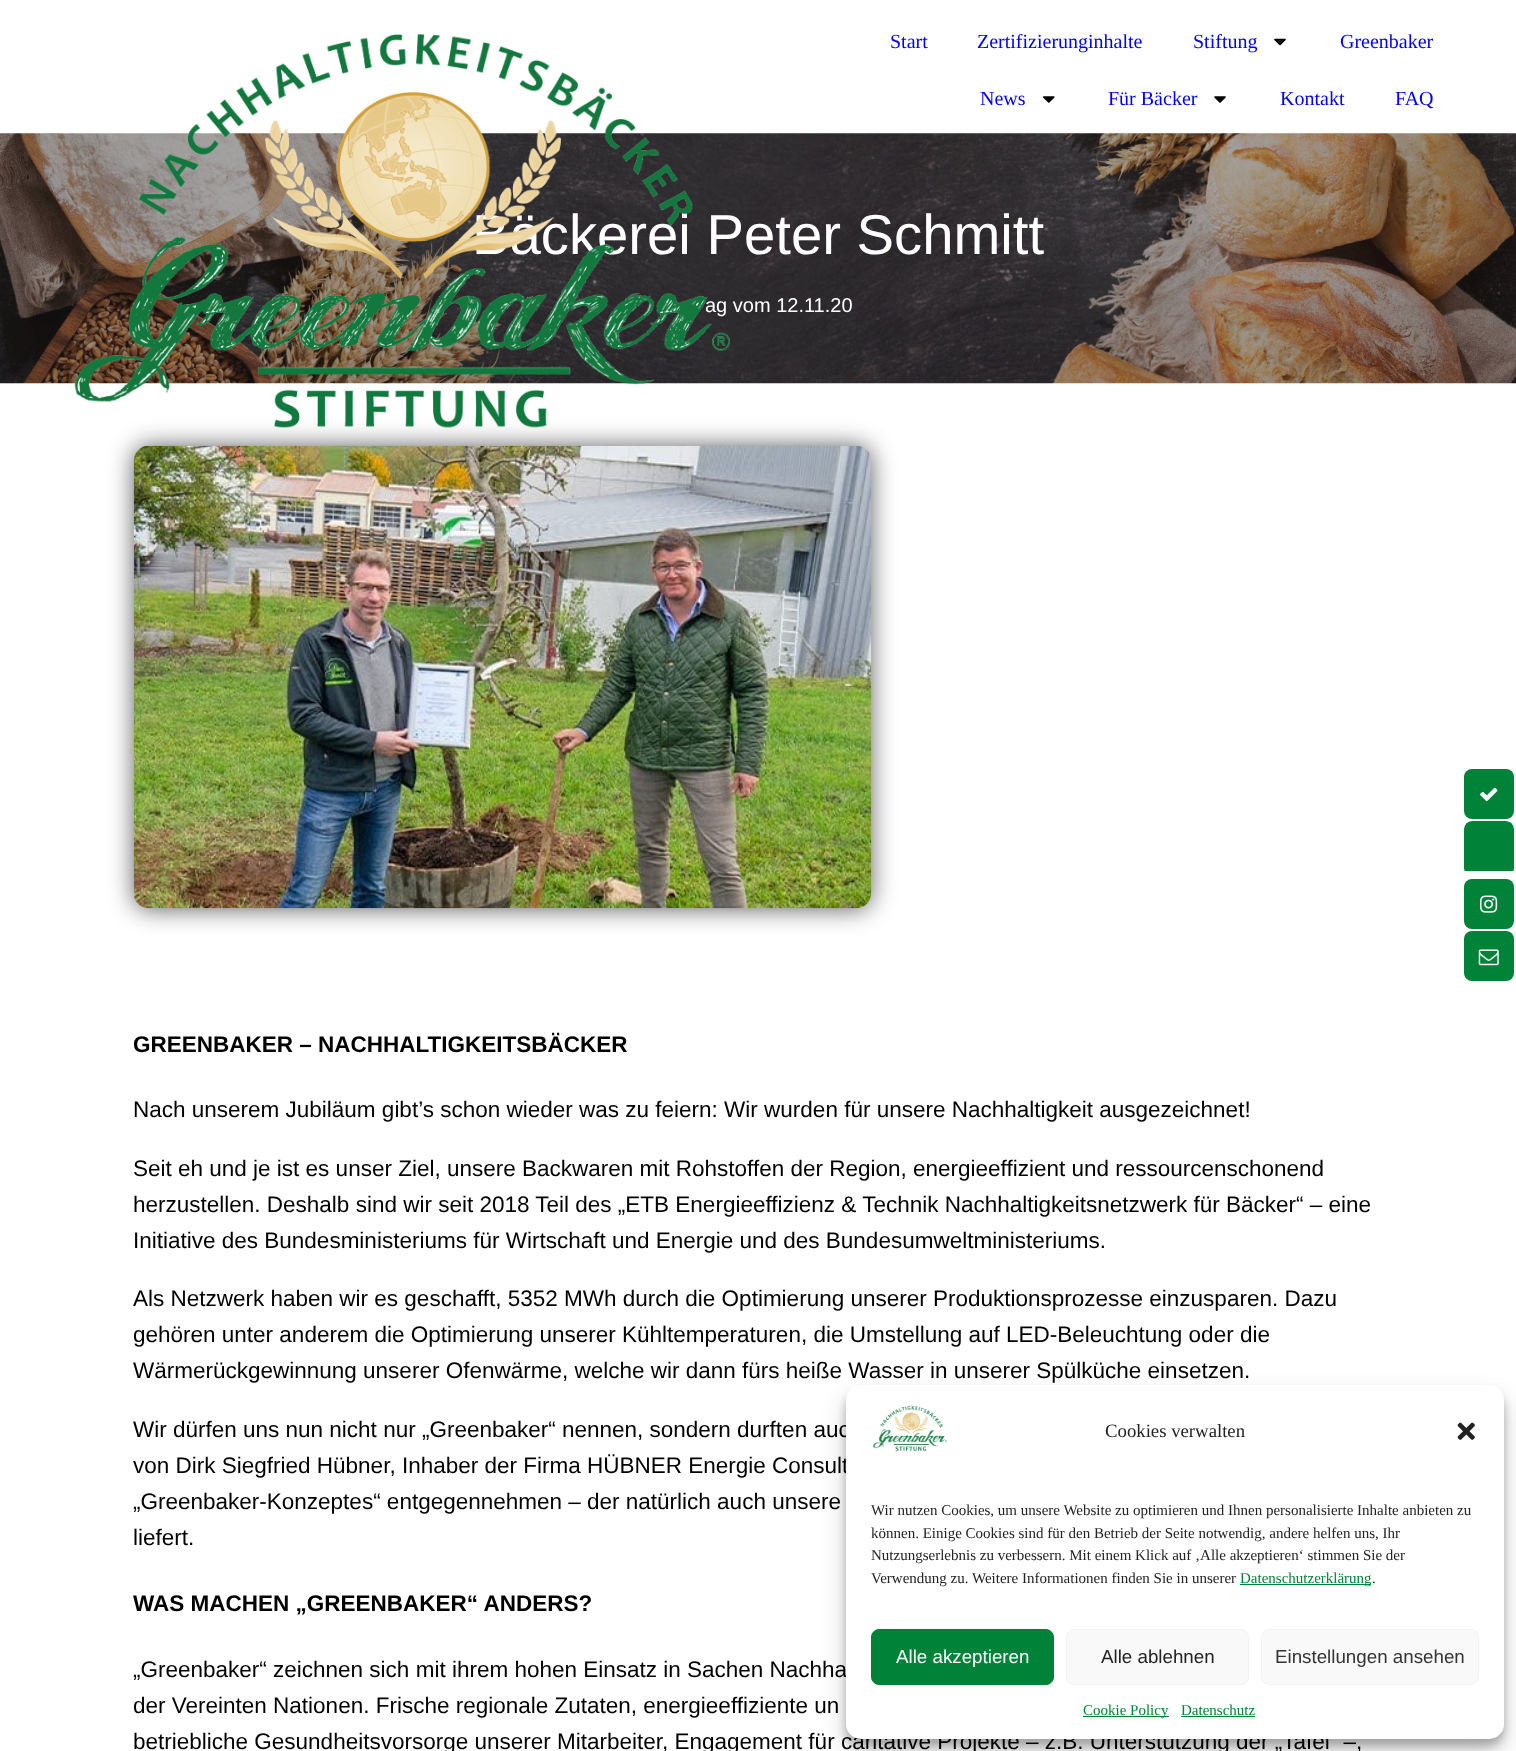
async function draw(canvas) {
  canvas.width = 1516
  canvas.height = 1751
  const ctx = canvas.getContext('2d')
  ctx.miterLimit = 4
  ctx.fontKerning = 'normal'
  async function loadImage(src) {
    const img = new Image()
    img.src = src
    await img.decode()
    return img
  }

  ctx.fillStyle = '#fff'
  ctx.fillRect(0, 0, 1516, 1751)
  ctx.drawImage(await loadImage('image4.png'), 0, 133, 1516, 251)
  ctx.font = '56.25px Liberation Sans'
  ctx.fillText('Bäckerei Peter Schmitt', 472, 254)
  ctx.font = '20px Liberation Sans'
  ctx.fillText('ag vom 12.11.20', 705, 312)
  ctx.fillStyle = '#000000a1'
  ctx.filter = 'blur(12.5px)'
  ctx.beginPath()
  ctx.roundRect(134, 446, 737, 463, 15)
  ctx.fill()
  ctx.filter = 'none'
  ctx.drawImage(await loadImage('image0.png'), 74, 34, 657, 394)
  ctx.font = '20px Liberation Serif'
  ctx.fillStyle = '#00e'
  ctx.fillText('Start', 890, 48)
  ctx.fillText('Zertifizierunginhalte', 977, 48)
  ctx.fillText('Stiftung', 1193, 48)
  ctx.drawImage(await loadImage('image1.png'), 1274, 38, 12, 8)
  ctx.fillText('Greenbaker', 1340, 48)
  ctx.fillText('News', 980, 105)
  ctx.drawImage(await loadImage('image2.png'), 1043, 96, 12, 7)
  ctx.fillText('Für Bäcker', 1108, 105)
  ctx.drawImage(await loadImage('image3.png'), 1214, 96, 12, 7)
  ctx.fillText('Kontakt', 1280, 105)
  ctx.fillText('FAQ', 1395, 105)
  ctx.drawImage(await loadImage('image5.png'), 133, 445, 739, 464)
  ctx.font = 'bold 22.5px Liberation Sans'
  ctx.fillStyle = '#000'
  ctx.fillText('GREENBAKER – NACHHALTIGKEITSBÄCKER', 133, 1052)
  ctx.font = '22.5px Liberation Sans'
  ctx.fillText('Nach unserem Jubiläum gibt’s schon wieder was zu feiern: Wir wurden für unsere Nachhaltigkeit ausgezeichnet!', 133, 1117)
  ctx.fillText('Seit eh und je ist es unser Ziel, unsere Backwaren mit Rohstoffen der Region, energieeffizient und ressourcenschonend', 133, 1176)
  ctx.fillText('herzustellen. Deshalb sind wir seit 2018 Teil des „ETB Energieeffizienz & Technik Nachhaltigkeitsnetzwerk für Bäcker“ – eine', 133, 1212)
  ctx.fillText('Initiative des Bundesministeriums für Wirtschaft und Energie und des Bundesumweltministeriums.', 133, 1248)
  ctx.fillText('Als Netzwerk haben wir es geschafft, 5352 MWh durch die Optimierung unserer Produktionsprozesse einzusparen. Dazu', 133, 1306)
  ctx.fillText('gehören unter anderem die Optimierung unserer Kühltemperaturen, die Umstellung auf LED-Beleuchtung oder die', 133, 1342)
  ctx.fillText('Wärmerückgewinnung unserer Ofenwärme, welche wir dann fürs heiße Wasser in unserer Spülküche einsetzen.', 133, 1378)
  ctx.fillText('Wir dürfen uns nun nicht nur „Greenbaker“ nennen, sondern durften auc', 133, 1437)
  ctx.fillText('von Dirk Siegfried Hübner, Inhaber der Firma HÜBNER Energie Consult', 133, 1473)
  ctx.fillText('„Greenbaker-Konzeptes“ entgegennehmen – der natürlich auch unsere', 133, 1509)
  ctx.fillText('liefert.', 133, 1545)
  ctx.font = 'bold 22.5px Liberation Sans'
  ctx.fillText('WAS MACHEN „GREENBAKER“ ANDERS?', 133, 1611)
  ctx.font = '22.5px Liberation Sans'
  ctx.fillText('„Greenbaker“ zeichnen sich mit ihrem hohen Einsatz in Sachen Nachha', 133, 1677)
  ctx.fillText('der Vereinten Nationen. Frische regionale Zutaten, energieeffiziente un', 133, 1713)
  ctx.fillText('betriebliche Gesundheitsvorsorge unserer Mitarbeiter, Engagement für caritative Projekte – z.B. Unterstützung der „Tafel“ –,', 133, 1749)
  ctx.fillStyle = '#008238'
  ctx.beginPath()
  ctx.roundRect(1464, 769, 50, 50, 8)
  ctx.fill()
  ctx.drawImage(await loadImage('image6.png'), 1480, 787, 18, 15)
  ctx.save()
  ctx.beginPath()
  ctx.roundRect(1464, 821, 50, 55, 8)
  ctx.clip()
  ctx.beginPath()
  ctx.roundRect(1464, 821, 50, 50, [8, 8, 0, 0])
  ctx.fill()
  ctx.restore()
  ctx.beginPath()
  ctx.roundRect(1464, 879, 50, 50, 8)
  ctx.fill()
  ctx.drawImage(await loadImage('image7.png'), 1480, 895, 18, 18)
  ctx.beginPath()
  ctx.roundRect(1464, 931, 50, 50, 8)
  ctx.fill()
  ctx.drawImage(await loadImage('image8.png'), 1478, 949, 21, 17)
  ctx.fillStyle = '#0000003b'
  ctx.filter = 'blur(4px)'
  ctx.beginPath()
  ctx.roundRect(846, 1393, 658, 353, 15)
  ctx.fill()
  ctx.filter = 'none'
  ctx.fillStyle = '#00000030'
  ctx.filter = 'blur(12.5px)'
  ctx.beginPath()
  ctx.roundRect(846, 1398, 658, 353, 15)
  ctx.fill()
  ctx.filter = 'none'
  ctx.fillStyle = '#fff'
  ctx.beginPath()
  ctx.roundRect(846, 1385, 658, 354, 15)
  ctx.fill()
  ctx.drawImage(await loadImage('image9.png'), 873, 1406, 74, 46)
  ctx.font = '18.75px Liberation Serif'
  ctx.fillStyle = '#222'
  ctx.fillText('Cookies verwalten', 1105, 1437)
  ctx.drawImage(await loadImage('image10.png'), 1457, 1422, 18, 18)
  ctx.font = '15px Liberation Serif'
  ctx.fillText('Wir nutzen Cookies, um unsere Website zu optimieren und Ihnen personalisierte Inhalte anbieten zu', 871, 1515)
  ctx.fillText('können. Einige Cookies sind für den Betrieb der Seite notwendig, andere helfen uns, Ihr', 871, 1538)
  ctx.fillText('Nutzungserlebnis zu verbessern. Mit einem Klick auf ‚Alle akzeptieren‘ stimmen Sie der', 871, 1560)
  ctx.fillText('Verwendung zu. Weitere Informationen finden Sie in unserer', 871, 1583)
  ctx.fillStyle = '#008238'
  ctx.fillRect(1240, 1584, 131, 1)
  ctx.fillText('Datenschutzerklärung', 1240, 1583)
  ctx.fillStyle = '#222'
  ctx.fillText('.', 1372, 1583)
  ctx.fillStyle = '#008238'
  ctx.beginPath()
  ctx.roundRect(871.5, 1629.5, 182, 55, 7.5)
  ctx.fill()
  ctx.strokeStyle = '#008238'
  ctx.stroke()
  ctx.font = '18.75px Liberation Sans'
  ctx.fillStyle = '#fff'
  ctx.fillText('Alle akzeptieren', 896, 1663)
  ctx.fillStyle = '#f9f9f9'
  ctx.beginPath()
  ctx.roundRect(1066.5, 1629.5, 182, 55, 7.5)
  ctx.fill()
  ctx.strokeStyle = '#f2f2f2'
  ctx.stroke()
  ctx.fillStyle = '#222'
  ctx.fillText('Alle ablehnen', 1101, 1663)
  ctx.fillStyle = '#f9f9f9'
  ctx.beginPath()
  ctx.roundRect(1261.5, 1629.5, 217, 55, 7.5)
  ctx.fill()
  ctx.stroke()
  ctx.fillStyle = '#333'
  ctx.fillText('Einstellungen ansehen', 1275, 1663)
  ctx.fillStyle = '#008238'
  ctx.fillRect(1083, 1716, 86, 1)
  ctx.font = '15px Liberation Serif'
  ctx.fillText('Cookie Policy', 1083, 1715)
  ctx.fillText('Datenschutz', 1181, 1715)
  ctx.fillRect(1181, 1716, 74, 1)
}

draw(document.querySelector('canvas'))
